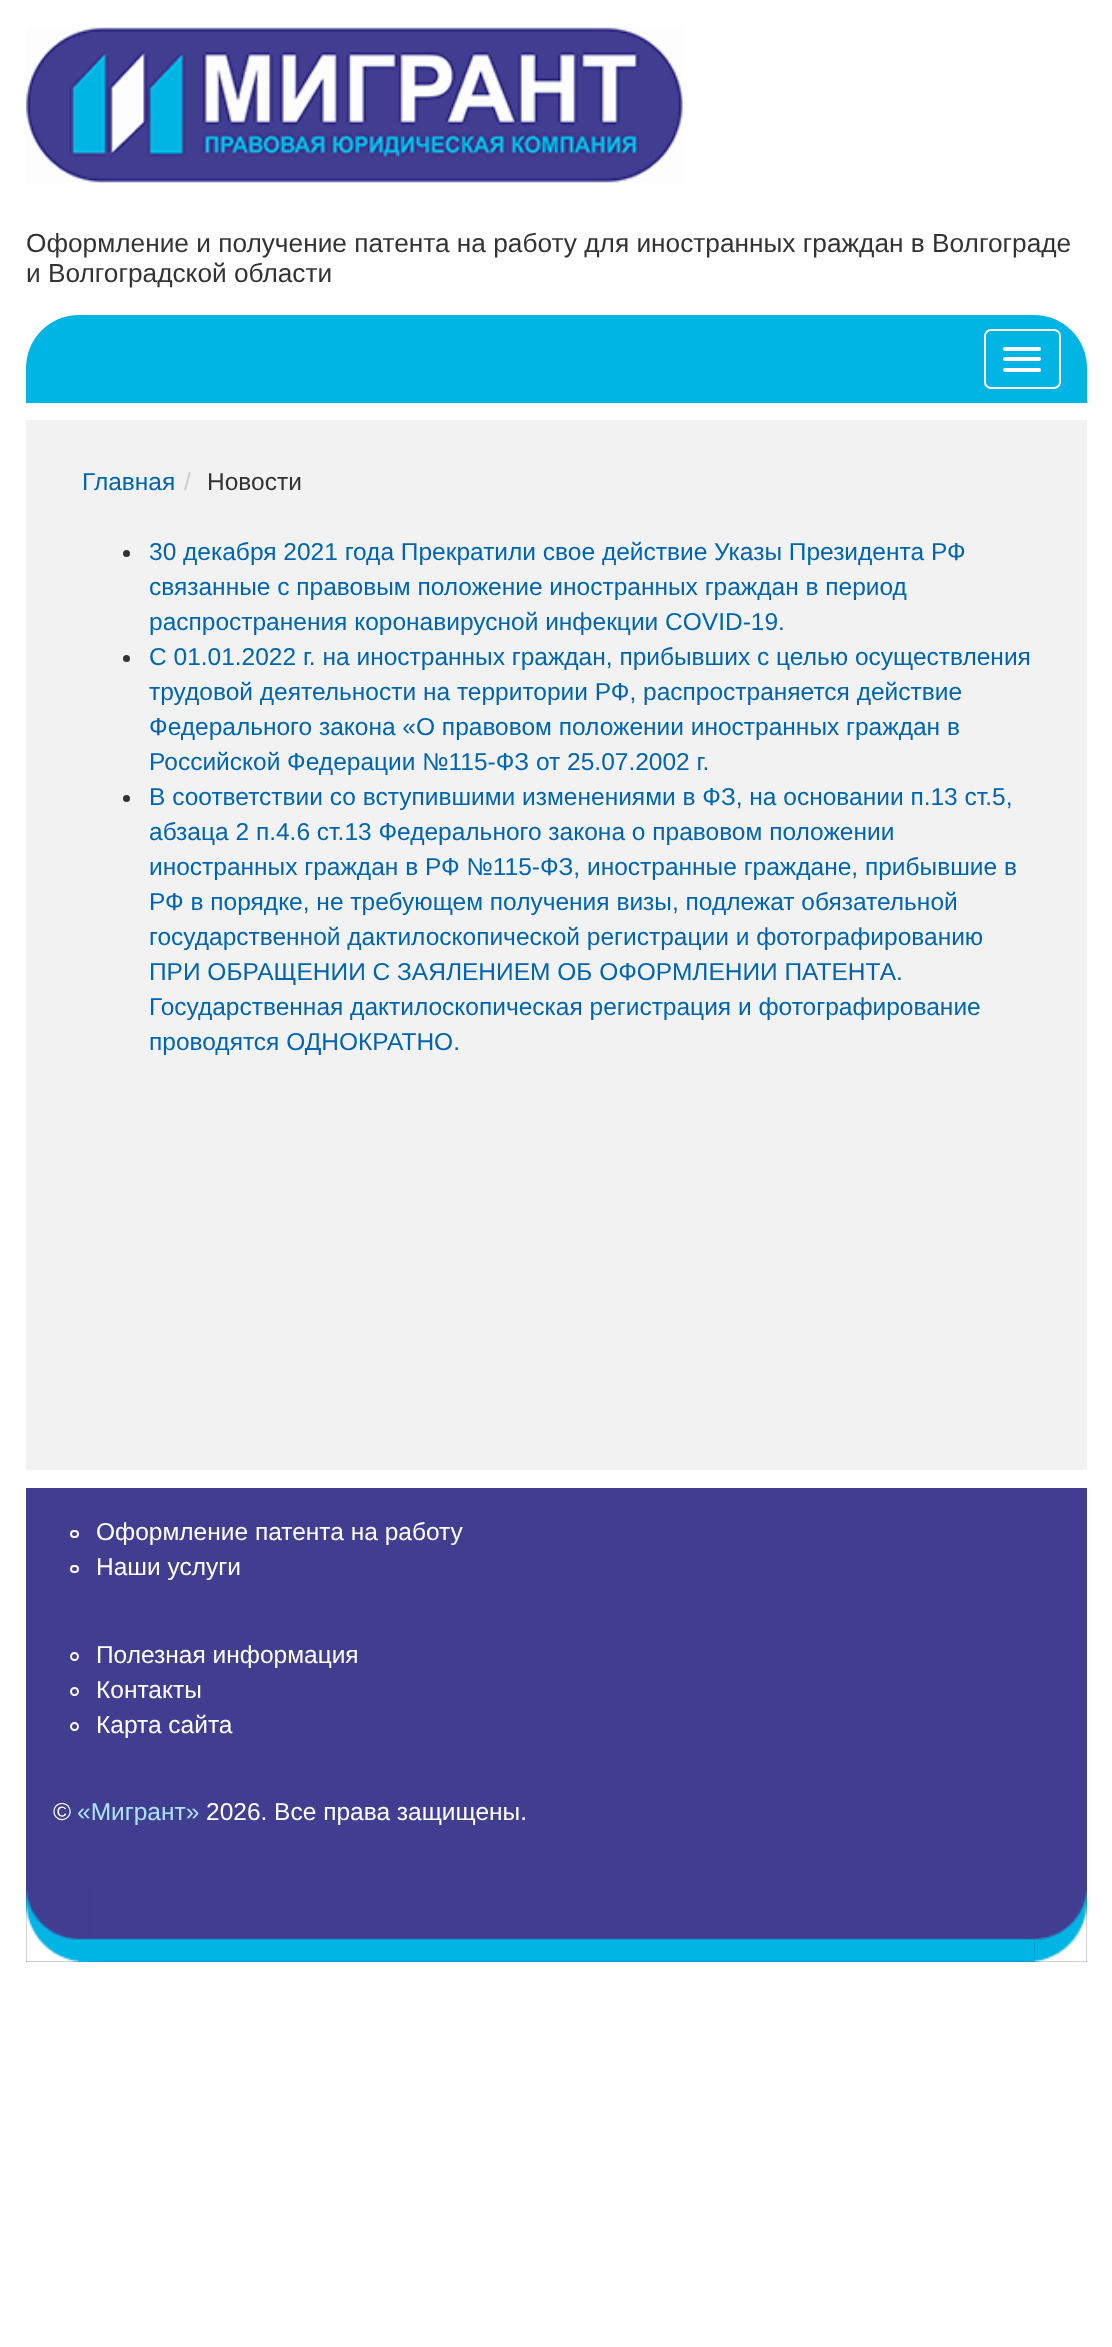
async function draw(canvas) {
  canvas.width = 1112
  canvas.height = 2347
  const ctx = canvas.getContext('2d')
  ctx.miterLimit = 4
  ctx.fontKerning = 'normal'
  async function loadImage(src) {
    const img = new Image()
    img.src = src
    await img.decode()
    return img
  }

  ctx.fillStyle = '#fff'
  ctx.fillRect(0, 0, 1112, 2347)
  ctx.drawImage(await loadImage('image0.png'), 26, 27, 657, 156)
  ctx.font = '26.25px Liberation Sans'
  ctx.fillStyle = '#333'
  ctx.fillText('Оформление и получение патента на работу для иностранных граждан в Волгограде', 26, 252)
  ctx.fillText('и Волгоградской области', 26, 282)
  ctx.fillStyle = '#00b4e4'
  ctx.beginPath()
  ctx.roundRect(26, 315, 1061, 88, [53, 53, 0, 0])
  ctx.fill()
  ctx.beginPath()
  ctx.roundRect(985, 330, 75, 58, 6)
  ctx.strokeStyle = '#fff'
  ctx.lineWidth = 2
  ctx.stroke()
  ctx.fillStyle = '#fff'
  ctx.beginPath()
  ctx.roundRect(1003, 347, 38, 4, 2)
  ctx.fill()
  ctx.beginPath()
  ctx.roundRect(1003, 357, 38, 4, 2)
  ctx.fill()
  ctx.beginPath()
  ctx.roundRect(1003, 368, 38, 4, 2)
  ctx.fill()
  ctx.fillStyle = '#f2f2f2'
  ctx.fillRect(26, 420, 1061, 1050)
  ctx.font = '24.5px Liberation Sans'
  ctx.fillStyle = '#0065b1'
  ctx.fillText('Главная', 82, 490)
  ctx.fillStyle = '#ccc'
  ctx.fillText('/', 184, 490)
  ctx.fillStyle = '#333'
  ctx.fillText('Новости', 207, 490)
  ctx.beginPath()
  ctx.arc(126.5, 553.5, 3.5, 0, 2 * Math.PI)
  ctx.fill()
  ctx.fillStyle = '#0065b1'
  ctx.fillText('30 декабря 2021 года Прекратили свое действие Указы Президента РФ', 149, 560)
  ctx.fillText('связанные с правовым положение иностранных граждан в период', 149, 595)
  ctx.fillText('распространения коронавирусной инфекции CОVID-19.', 149, 630)
  ctx.fillStyle = '#333'
  ctx.beginPath()
  ctx.arc(126.5, 658.5, 3.5, 0, 2 * Math.PI)
  ctx.fill()
  ctx.fillStyle = '#0065b1'
  ctx.fillText('С 01.01.2022 г. на иностранных граждан, прибывших с целью осуществления', 149, 665)
  ctx.fillText('трудовой деятельности на территории РФ, распространяется действие', 149, 700)
  ctx.fillText('Федерального закона «О правовом положении иностранных граждан в', 149, 735)
  ctx.fillText('Российской Федерации №115-ФЗ от 25.07.2002 г.', 149, 770)
  ctx.fillStyle = '#333'
  ctx.beginPath()
  ctx.arc(126.5, 798.5, 3.5, 0, 2 * Math.PI)
  ctx.fill()
  ctx.fillStyle = '#0065b1'
  ctx.fillText('В соответствии со вступившими изменениями в ФЗ, на основании п.13 ст.5,', 149, 805)
  ctx.fillText('абзаца 2 п.4.6 ст.13 Федерального закона о правовом положении', 149, 840)
  ctx.fillText('иностранных граждан в РФ №115-ФЗ, иностранные граждане, прибывшие в', 149, 875)
  ctx.fillText('РФ в порядке, не требующем получения визы, подлежат обязательной', 149, 910)
  ctx.fillText('государственной дактилоскопической регистрации и фотографированию', 149, 945)
  ctx.fillText('ПРИ ОБРАЩЕНИИ С ЗАЯЛЕНИЕМ ОБ ОФОРМЛЕНИИ ПАТЕНТА.', 149, 980)
  ctx.fillText('Государственная дактилоскопическая регистрация и фотографирование', 149, 1015)
  ctx.fillText('проводятся ОДНОКРАТНО.', 149, 1050)
  ctx.fillStyle = '#413d90'
  ctx.fillRect(26, 1488, 1061, 474)
  ctx.drawImage(await loadImage('image1.png'), 26, 1889, 1061, 73)
  ctx.beginPath()
  ctx.roundRect(71, 1531, 7, 6, 3)
  ctx.stroke()
  ctx.fillStyle = '#fff'
  ctx.fillText('Оформление патента на работу', 96, 1540)
  ctx.beginPath()
  ctx.roundRect(71, 1566, 7, 6, 3)
  ctx.stroke()
  ctx.fillText('Наши услуги', 96, 1575)
  ctx.beginPath()
  ctx.arc(74.5, 1656.5, 3.5, 0, 2 * Math.PI)
  ctx.stroke()
  ctx.fillText('Полезная информация', 96, 1663)
  ctx.beginPath()
  ctx.arc(74.5, 1691.5, 3.5, 0, 2 * Math.PI)
  ctx.stroke()
  ctx.fillText('Контакты', 96, 1698)
  ctx.beginPath()
  ctx.arc(74.5, 1726.5, 3.5, 0, 2 * Math.PI)
  ctx.stroke()
  ctx.fillText('Карта сайта', 96, 1733)
  ctx.fillText('©', 53, 1820)
  ctx.fillStyle = '#ace3ff'
  ctx.fillText('«Мигрант»', 77, 1820)
  ctx.fillStyle = '#fff'
  ctx.fillText('2026. Все права защищены.', 206, 1820)
  ctx.drawImage(await loadImage('image2.png'), 78, 1938, 957, 24)
}

draw(document.querySelector('canvas'))
